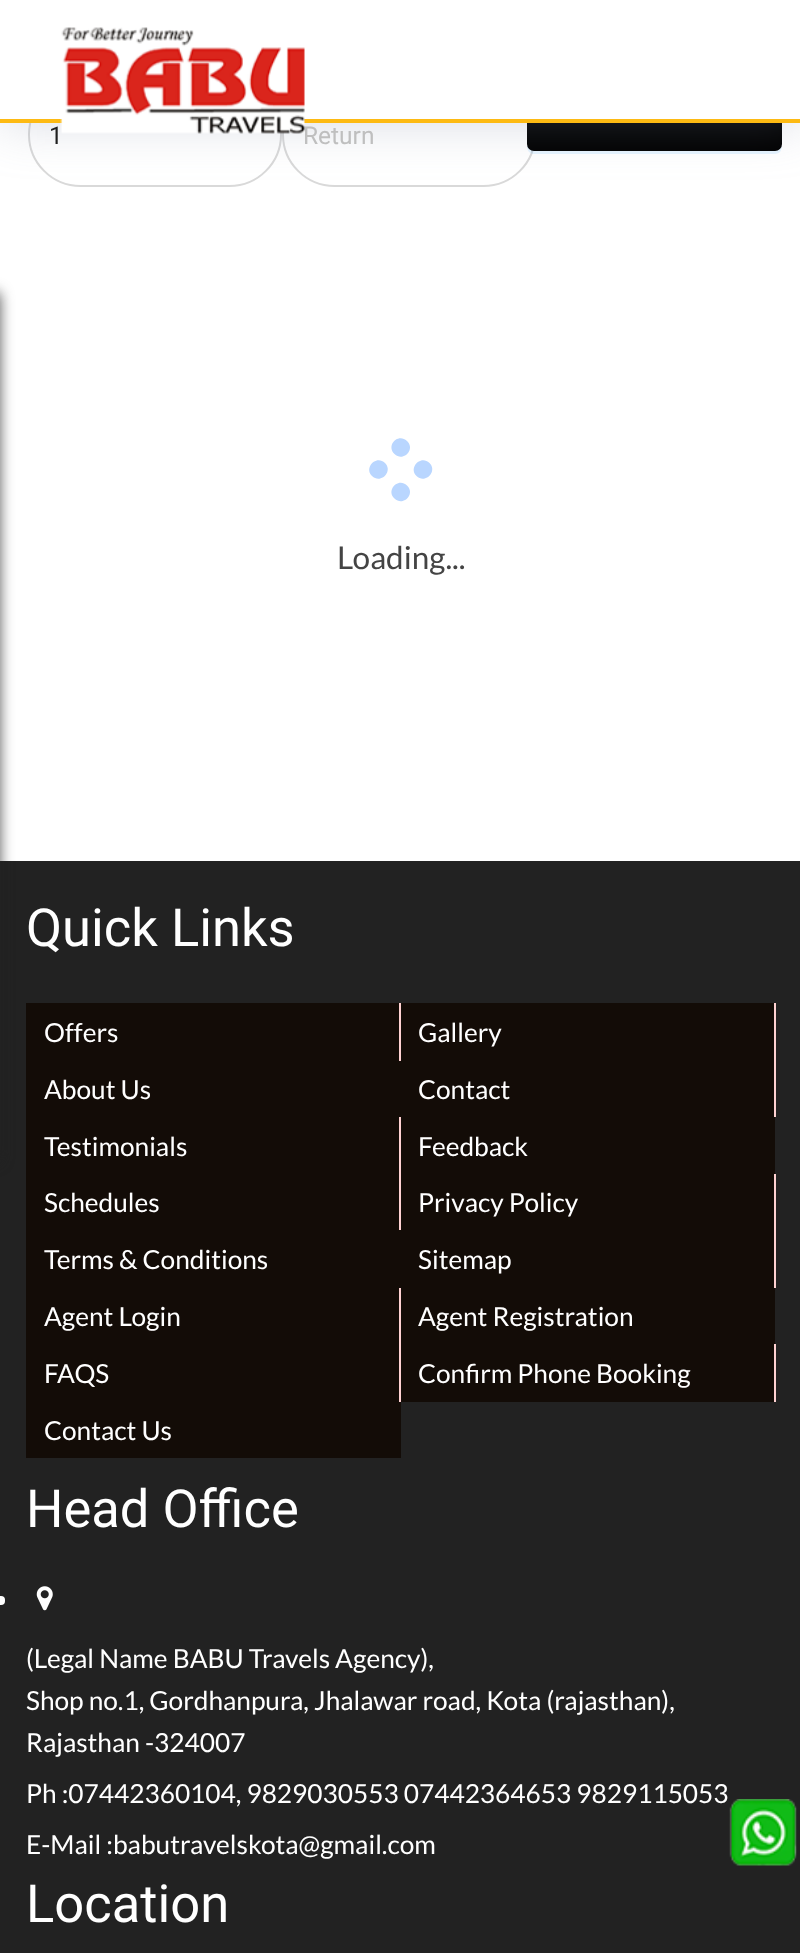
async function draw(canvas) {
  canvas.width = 800
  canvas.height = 1953
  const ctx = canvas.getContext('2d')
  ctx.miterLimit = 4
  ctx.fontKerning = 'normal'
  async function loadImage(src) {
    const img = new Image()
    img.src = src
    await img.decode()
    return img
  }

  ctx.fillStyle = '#fff'
  ctx.fillRect(0, 0, 800, 1953)
  ctx.beginPath()
  ctx.roundRect(29, 83, 252, 103, 51.5)
  ctx.strokeStyle = '#d9d9d9'
  ctx.lineWidth = 2
  ctx.stroke()
  ctx.beginPath()
  ctx.roundRect(283, 83, 252, 103, 51.5)
  ctx.stroke()
  ctx.fillStyle = '#0591ff1a'
  ctx.beginPath()
  ctx.moveTo(527, 145)
  ctx.bezierCurveTo(527, 149, 528, 153, 533, 154)
  ctx.lineTo(775, 154)
  ctx.bezierCurveTo(780, 154, 782, 150, 782, 145)
  ctx.bezierCurveTo(781, 148, 778, 150, 775, 150)
  ctx.lineTo(534, 150)
  ctx.bezierCurveTo(531, 150, 528, 148, 527, 145)
  ctx.closePath()
  ctx.fill()
  ctx.fillStyle = '#000'
  ctx.beginPath()
  ctx.roundRect(528, 96, 253, 54, 6)
  ctx.fill()
  ctx.strokeStyle = '#000'
  ctx.stroke()
  ctx.fillStyle = '#7f89a14d'
  ctx.filter = 'blur(26px)'
  ctx.beginPath()
  ctx.rect(0, 0, 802, 123)
  ctx.fill()
  ctx.filter = 'none'
  ctx.fillStyle = '#fff'
  ctx.fillRect(0, 0, 800, 119)
  ctx.fillStyle = '#fdba13'
  ctx.fillRect(0, 119, 800, 4)
  ctx.drawImage(await loadImage('image0.png'), 60, 27, 245, 107)
  ctx.fillStyle = '#222'
  ctx.fillRect(0, 861, 800, 1092)
  ctx.fillStyle = '#222222bf'
  ctx.filter = 'blur(7px)'
  ctx.beginPath()
  ctx.roundRect(-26, 292, 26, 870, 5)
  ctx.fill()
  ctx.filter = 'none'
  ctx.font = '24.5px Roboto'
  ctx.fillStyle = '#1f1f1f'
  ctx.fillText('1', 49, 144)
  ctx.fillStyle = '#bfbfbf'
  ctx.fillText('Return', 303, 144)
  ctx.fillStyle = '#b9d6ff'
  ctx.beginPath()
  ctx.moveTo(407, 441)
  ctx.bezierCurveTo(416, 449.5, 403, 462.5, 394.5, 454)
  ctx.bezierCurveTo(385.5, 445, 398.5, 432.5, 407, 441)
  ctx.closePath()
  ctx.moveTo(429.5, 463)
  ctx.bezierCurveTo(438, 471.5, 425, 484.5, 416.5, 476)
  ctx.bezierCurveTo(408, 467.5, 421, 454.5, 429.5, 463)
  ctx.closePath()
  ctx.fill()
  ctx.beginPath()
  ctx.moveTo(407, 485.5)
  ctx.bezierCurveTo(416, 494, 403, 507, 394.5, 498.5)
  ctx.bezierCurveTo(385.5, 490, 398.5, 477, 407, 485.5)
  ctx.closePath()
  ctx.moveTo(385, 463)
  ctx.bezierCurveTo(393.5, 471.5, 380.5, 484.5, 372, 476)
  ctx.bezierCurveTo(363.5, 467.5, 376.5, 454.5, 385, 463)
  ctx.closePath()
  ctx.fill()
  ctx.font = '31.5px Lato'
  ctx.fillStyle = '#444'
  ctx.fillText('Loading...', 337, 569)
  ctx.font = '52.5px Roboto'
  ctx.fillStyle = '#fff'
  ctx.fillText('Quick Links', 26, 946)
  ctx.fillStyle = '#130c07'
  ctx.fillRect(26, 1003, 373, 58)
  ctx.fillStyle = '#ffd2d2'
  ctx.fillRect(399, 1003, 2, 58)
  ctx.font = '26.25px Lato'
  ctx.fillStyle = '#fff'
  ctx.fillText('Offers', 44, 1042)
  ctx.fillStyle = '#130c07'
  ctx.fillRect(401, 1003, 373, 58)
  ctx.fillStyle = '#ffd2d2'
  ctx.fillRect(774, 1003, 2, 114)
  ctx.fillStyle = '#fff'
  ctx.fillText('Gallery', 418, 1042)
  ctx.fillStyle = '#130c07'
  ctx.fillRect(26, 1061, 748, 56)
  ctx.fillStyle = '#fff'
  ctx.fillText('About Us', 44, 1099)
  ctx.fillText('Contact', 418, 1099)
  ctx.fillStyle = '#130c07'
  ctx.fillRect(26, 1117, 373, 113)
  ctx.fillStyle = '#ffd2d2'
  ctx.fillRect(399, 1117, 2, 113)
  ctx.fillStyle = '#fff'
  ctx.fillText('Testimonials', 44, 1156)
  ctx.fillStyle = '#130c07'
  ctx.fillRect(401, 1117, 374, 57)
  ctx.fillStyle = '#fff'
  ctx.fillText('Feedback', 418, 1156)
  ctx.fillText('Schedules', 44, 1212)
  ctx.fillStyle = '#130c07'
  ctx.fillRect(401, 1174, 373, 56)
  ctx.fillStyle = '#ffd2d2'
  ctx.fillRect(774, 1174, 2, 114)
  ctx.fillStyle = '#fff'
  ctx.fillText('Privacy Policy', 418, 1212)
  ctx.fillStyle = '#130c07'
  ctx.fillRect(26, 1230, 748, 58)
  ctx.fillStyle = '#fff'
  ctx.fillText('Terms & Conditions', 44, 1269)
  ctx.fillText('Sitemap', 418, 1269)
  ctx.fillStyle = '#130c07'
  ctx.fillRect(26, 1288, 373, 114)
  ctx.fillStyle = '#ffd2d2'
  ctx.fillRect(399, 1288, 2, 114)
  ctx.fillStyle = '#fff'
  ctx.fillText('Agent Login', 44, 1326)
  ctx.fillStyle = '#130c07'
  ctx.fillRect(401, 1288, 374, 56)
  ctx.fillStyle = '#fff'
  ctx.fillText('Agent Registration', 418, 1326)
  ctx.fillText('FAQS', 44, 1383)
  ctx.fillStyle = '#130c07'
  ctx.fillRect(401, 1344, 373, 58)
  ctx.fillStyle = '#ffd2d2'
  ctx.fillRect(774, 1344, 2, 58)
  ctx.fillStyle = '#fff'
  ctx.fillText('Confirm Phone Booking', 418, 1383)
  ctx.fillStyle = '#130c07'
  ctx.fillRect(26, 1402, 375, 56)
  ctx.fillStyle = '#fff'
  ctx.fillText('Contact Us', 44, 1440)
  ctx.font = '52.5px Roboto'
  ctx.fillText('Head Office', 26, 1527)
  ctx.beginPath()
  ctx.roundRect(-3, 1596, 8, 9, 4)
  ctx.fill()
  ctx.drawImage(await loadImage('image1.png'), 36, 1586, 17, 25)
  ctx.font = '26.25px Lato'
  ctx.fillText('(Legal Name BABU Travels Agency),', 26, 1668)
  ctx.fillText('Shop no.1, Gordhanpura, Jhalawar road, Kota (rajasthan),', 26, 1710)
  ctx.fillText('Rajasthan -324007', 26, 1752)
  ctx.fillText('Ph :07442360104, 9829030553 07442364653 9829115053', 26, 1803)
  ctx.fillText('E-Mail :babutravelskota@gmail.com', 26, 1854)
  ctx.font = '52.5px Roboto'
  ctx.fillText('Location', 26, 1922)
  ctx.drawImage(await loadImage('image2.png'), 729, 1799, 68, 67)
}

draw(document.querySelector('canvas'))
